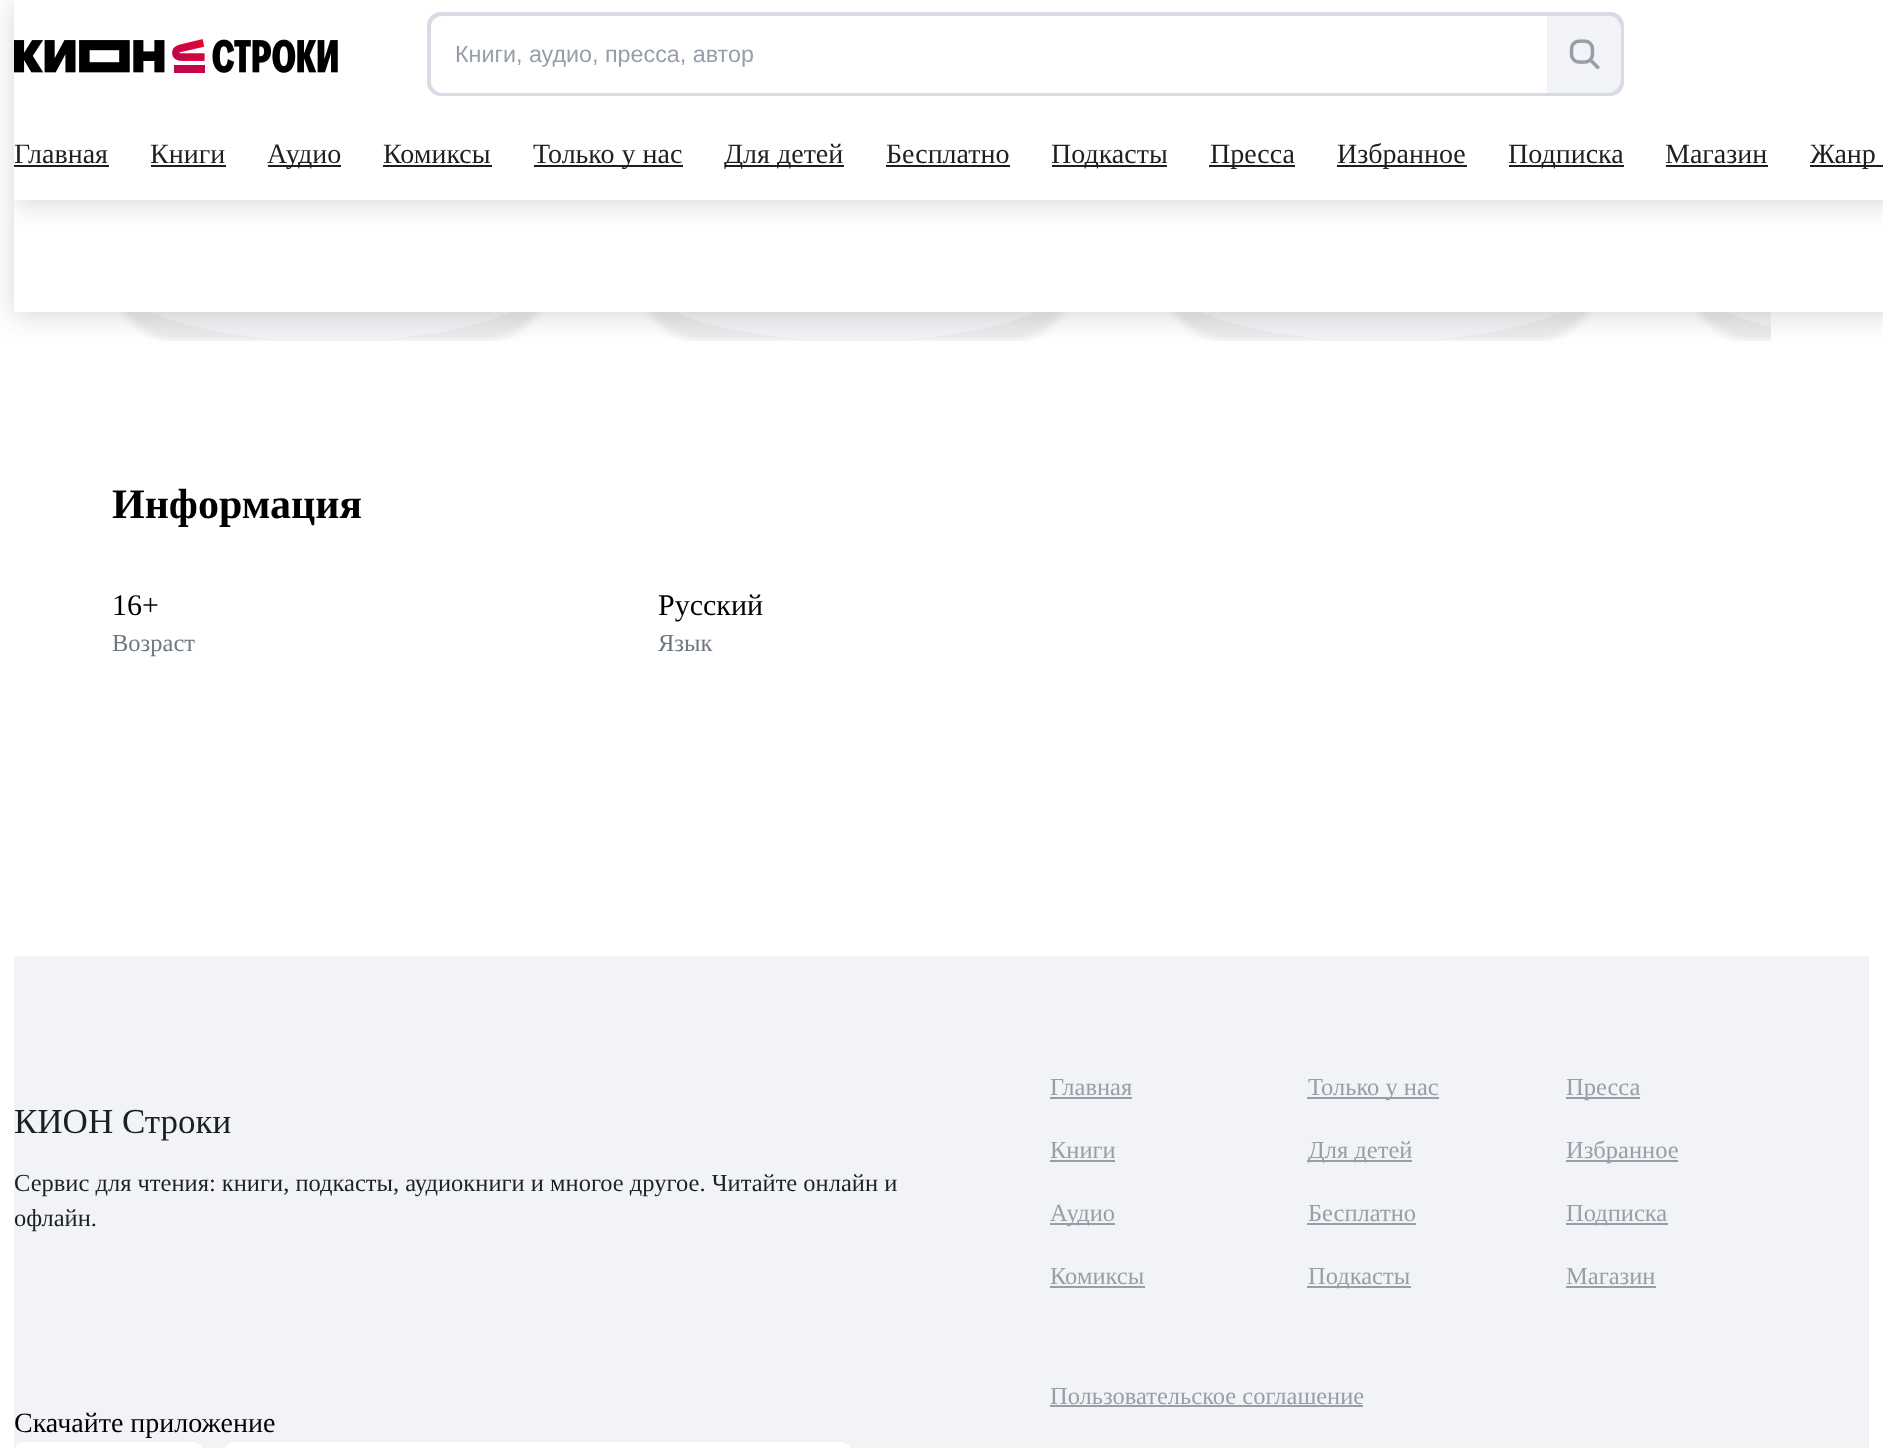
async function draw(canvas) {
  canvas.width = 1883
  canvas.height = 1448
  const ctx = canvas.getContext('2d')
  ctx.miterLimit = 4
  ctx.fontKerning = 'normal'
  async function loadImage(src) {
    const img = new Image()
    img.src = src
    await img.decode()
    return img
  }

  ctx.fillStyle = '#fff'
  ctx.fillRect(0, 0, 1883, 1448)
  ctx.save()
  ctx.beginPath()
  ctx.rect(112, 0, 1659, 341)
  ctx.clip()
  ctx.fillStyle = '#00000014'
  ctx.filter = 'blur(3.5px)'
  ctx.beginPath()
  ctx.roundRect(112, 208, 438, 133, 66.5)
  ctx.fill()
  ctx.filter = 'none'
  ctx.restore()
  ctx.fillStyle = '#f2f3f7'
  ctx.beginPath()
  ctx.moveTo(112, 208)
  ctx.lineTo(550, 208)
  ctx.lineTo(550, 275)
  ctx.bezierCurveTo(550, 311, 452, 341, 331, 341)
  ctx.bezierCurveTo(210, 341, 112, 311, 112, 275)
  ctx.closePath()
  ctx.fill()
  ctx.save()
  ctx.beginPath()
  ctx.rect(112, 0, 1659, 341)
  ctx.clip()
  ctx.fillStyle = '#00000014'
  ctx.filter = 'blur(3.5px)'
  ctx.beginPath()
  ctx.roundRect(637, 208, 438, 133, 66.5)
  ctx.fill()
  ctx.filter = 'none'
  ctx.restore()
  ctx.beginPath()
  ctx.moveTo(637, 208)
  ctx.lineTo(1074, 208)
  ctx.lineTo(1074, 275)
  ctx.bezierCurveTo(1074, 311, 977, 341, 856, 341)
  ctx.bezierCurveTo(735, 341, 637, 311, 637, 275)
  ctx.closePath()
  ctx.fill()
  ctx.save()
  ctx.beginPath()
  ctx.rect(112, 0, 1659, 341)
  ctx.clip()
  ctx.fillStyle = '#00000014'
  ctx.filter = 'blur(3.5px)'
  ctx.beginPath()
  ctx.roundRect(1162, 208, 438, 133, 66.5)
  ctx.fill()
  ctx.filter = 'none'
  ctx.restore()
  ctx.beginPath()
  ctx.moveTo(1162, 208)
  ctx.lineTo(1600, 208)
  ctx.lineTo(1600, 275)
  ctx.bezierCurveTo(1600, 311, 1502, 341, 1381, 341)
  ctx.bezierCurveTo(1260, 341, 1162, 311, 1162, 275)
  ctx.closePath()
  ctx.fill()
  ctx.save()
  ctx.beginPath()
  ctx.rect(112, 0, 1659, 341)
  ctx.clip()
  ctx.fillStyle = '#00000014'
  ctx.filter = 'blur(3.5px)'
  ctx.beginPath()
  ctx.roundRect(1687, 208, 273, 133, 66.5)
  ctx.fill()
  ctx.filter = 'none'
  ctx.restore()
  ctx.save()
  ctx.beginPath()
  ctx.rect(112, 0, 1659, 341)
  ctx.clip()
  ctx.beginPath()
  ctx.moveTo(1687, 208)
  ctx.lineTo(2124, 208)
  ctx.lineTo(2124, 275)
  ctx.bezierCurveTo(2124, 311, 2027, 341, 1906, 341)
  ctx.bezierCurveTo(1785, 341, 1687, 311, 1687, 275)
  ctx.closePath()
  ctx.fill()
  ctx.restore()
  ctx.fillStyle = '#00000014'
  ctx.filter = 'blur(14px)'
  ctx.beginPath()
  ctx.rect(14, 207, 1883, 112)
  ctx.fill()
  ctx.filter = 'none'
  ctx.filter = 'blur(14px)'
  ctx.beginPath()
  ctx.rect(14, 200, 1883, 112)
  ctx.fill()
  ctx.filter = 'none'
  ctx.fillStyle = '#fff'
  ctx.fillRect(14, 200, 1869, 112)
  ctx.fillStyle = '#00000014'
  ctx.filter = 'blur(14px)'
  ctx.beginPath()
  ctx.rect(14, 7, 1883, 200)
  ctx.fill()
  ctx.filter = 'none'
  ctx.filter = 'blur(14px)'
  ctx.beginPath()
  ctx.rect(14, 0, 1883, 200)
  ctx.fill()
  ctx.filter = 'none'
  ctx.fillStyle = '#fff'
  ctx.fillRect(14, 0, 1869, 200)
  ctx.drawImage(await loadImage('image0.png'), 14, 39, 324, 34)
  ctx.fillStyle = '#f2f3f7'
  ctx.beginPath()
  ctx.roundRect(427, 12, 1197, 84, 14)
  ctx.fill()
  ctx.beginPath()
  ctx.roundRect(429, 14, 1193, 80, 12)
  ctx.strokeStyle = '#bcc3d080'
  ctx.lineWidth = 4
  ctx.stroke()
  ctx.fillStyle = '#fff'
  ctx.beginPath()
  ctx.roundRect(431, 16, 1116, 77, [12, 0, 0, 12])
  ctx.fill()
  ctx.font = '23.3px Liberation Sans'
  ctx.fillStyle = '#969fa8'
  ctx.fillText('Книги, аудио, пресса, автор', 455, 62)
  ctx.fillStyle = '#f2f3f7'
  ctx.beginPath()
  ctx.roundRect(1547, 16, 74, 77, [0, 14, 14, 0])
  ctx.fill()
  ctx.drawImage(await loadImage('image1.png'), 1569, 39, 31, 31)
  ctx.font = '28px Liberation Serif'
  ctx.fillStyle = '#1d2023'
  ctx.fillText('Главная', 14, 163)
  ctx.fillRect(14, 165, 95, 2)
  ctx.fillText('Книги', 150, 163)
  ctx.fillRect(151, 165, 75, 2)
  ctx.fillRect(268, 165, 73, 2)
  ctx.fillText('Аудио', 267, 163)
  ctx.fillText('Комиксы', 383, 163)
  ctx.fillRect(383, 165, 109, 2)
  ctx.fillRect(534, 165, 149, 2)
  ctx.fillText('Только у нас', 533, 163)
  ctx.fillRect(725, 165, 119, 2)
  ctx.fillText('Для детей', 724, 163)
  ctx.fillText('Бесплатно', 886, 163)
  ctx.fillRect(886, 165, 124, 2)
  ctx.fillRect(1052, 165, 115, 2)
  ctx.fillText('Подкасты', 1051, 163)
  ctx.fillRect(1209, 165, 86, 2)
  ctx.fillText('Пресса', 1210, 163)
  ctx.fillRect(1337, 165, 130, 2)
  ctx.fillText('Избранное', 1337, 163)
  ctx.fillRect(1509, 165, 115, 2)
  ctx.fillText('Подписка', 1508, 163)
  ctx.fillText('Магазин', 1665, 163)
  ctx.fillRect(1666, 165, 102, 2)
  ctx.fillRect(1810, 165, 73, 2)
  ctx.fillText('Жанр', 1810, 163)
  ctx.font = 'bold 42px Liberation Serif'
  ctx.fillStyle = '#000'
  ctx.fillText('Информация', 112, 518)
  ctx.font = '30px Liberation Serif'
  ctx.fillText('16+', 112, 615)
  ctx.font = '24.5px Liberation Serif'
  ctx.fillStyle = '#6e7782'
  ctx.fillText('Возраст', 112, 651)
  ctx.font = '30px Liberation Serif'
  ctx.fillStyle = '#000'
  ctx.fillText('Русский', 658, 615)
  ctx.font = '24.5px Liberation Serif'
  ctx.fillStyle = '#6e7782'
  ctx.fillText('Язык', 658, 651)
  ctx.fillStyle = '#f2f3f7'
  ctx.fillRect(14, 956, 1855, 492)
  ctx.font = '35px Liberation Serif'
  ctx.fillStyle = '#1d2023'
  ctx.fillText('КИОН Строки', 14, 1133)
  ctx.font = '24.5px Liberation Serif'
  ctx.fillText('Сервис для чтения: книги, подкасты, аудиокниги и многое другое. Читайте онлайн и', 14, 1191)
  ctx.fillText('офлайн.', 14, 1226)
  ctx.fillStyle = '#969fa8'
  ctx.fillText('Главная', 1050, 1095)
  ctx.fillRect(1050, 1097, 82, 2)
  ctx.fillRect(1307, 1097, 132, 2)
  ctx.fillText('Только у нас', 1308, 1095)
  ctx.fillRect(1566, 1097, 74, 2)
  ctx.fillText('Пресса', 1566, 1095)
  ctx.fillText('Книги', 1050, 1158)
  ctx.fillRect(1050, 1160, 65, 2)
  ctx.fillRect(1307, 1160, 105, 2)
  ctx.fillText('Для детей', 1308, 1158)
  ctx.fillRect(1566, 1160, 112, 2)
  ctx.fillText('Избранное', 1566, 1158)
  ctx.fillRect(1050, 1223, 65, 2)
  ctx.fillText('Аудио', 1050, 1221)
  ctx.fillText('Бесплатно', 1308, 1221)
  ctx.fillRect(1307, 1223, 109, 2)
  ctx.fillRect(1566, 1223, 102, 2)
  ctx.fillText('Подписка', 1566, 1221)
  ctx.fillText('Комиксы', 1050, 1284)
  ctx.fillRect(1050, 1286, 95, 2)
  ctx.fillRect(1307, 1286, 104, 2)
  ctx.fillText('Подкасты', 1308, 1284)
  ctx.fillText('Магазин', 1566, 1284)
  ctx.fillRect(1566, 1286, 90, 2)
  ctx.fillText('Пользовательское соглашение', 1050, 1404)
  ctx.fillRect(1050, 1405, 313, 2)
  ctx.font = '28px Liberation Serif'
  ctx.fillStyle = '#000'
  ctx.fillText('Скачайте приложение', 14, 1432)
  ctx.fillStyle = '#fff'
  ctx.beginPath()
  ctx.roundRect(14, 1442, 189, 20, 14)
  ctx.fill()
  ctx.beginPath()
  ctx.roundRect(224, 1442, 322, 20, 14)
  ctx.fill()
  ctx.beginPath()
  ctx.roundRect(529, 1442, 322, 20, 14)
  ctx.fill()
}

draw(document.querySelector('canvas'))
